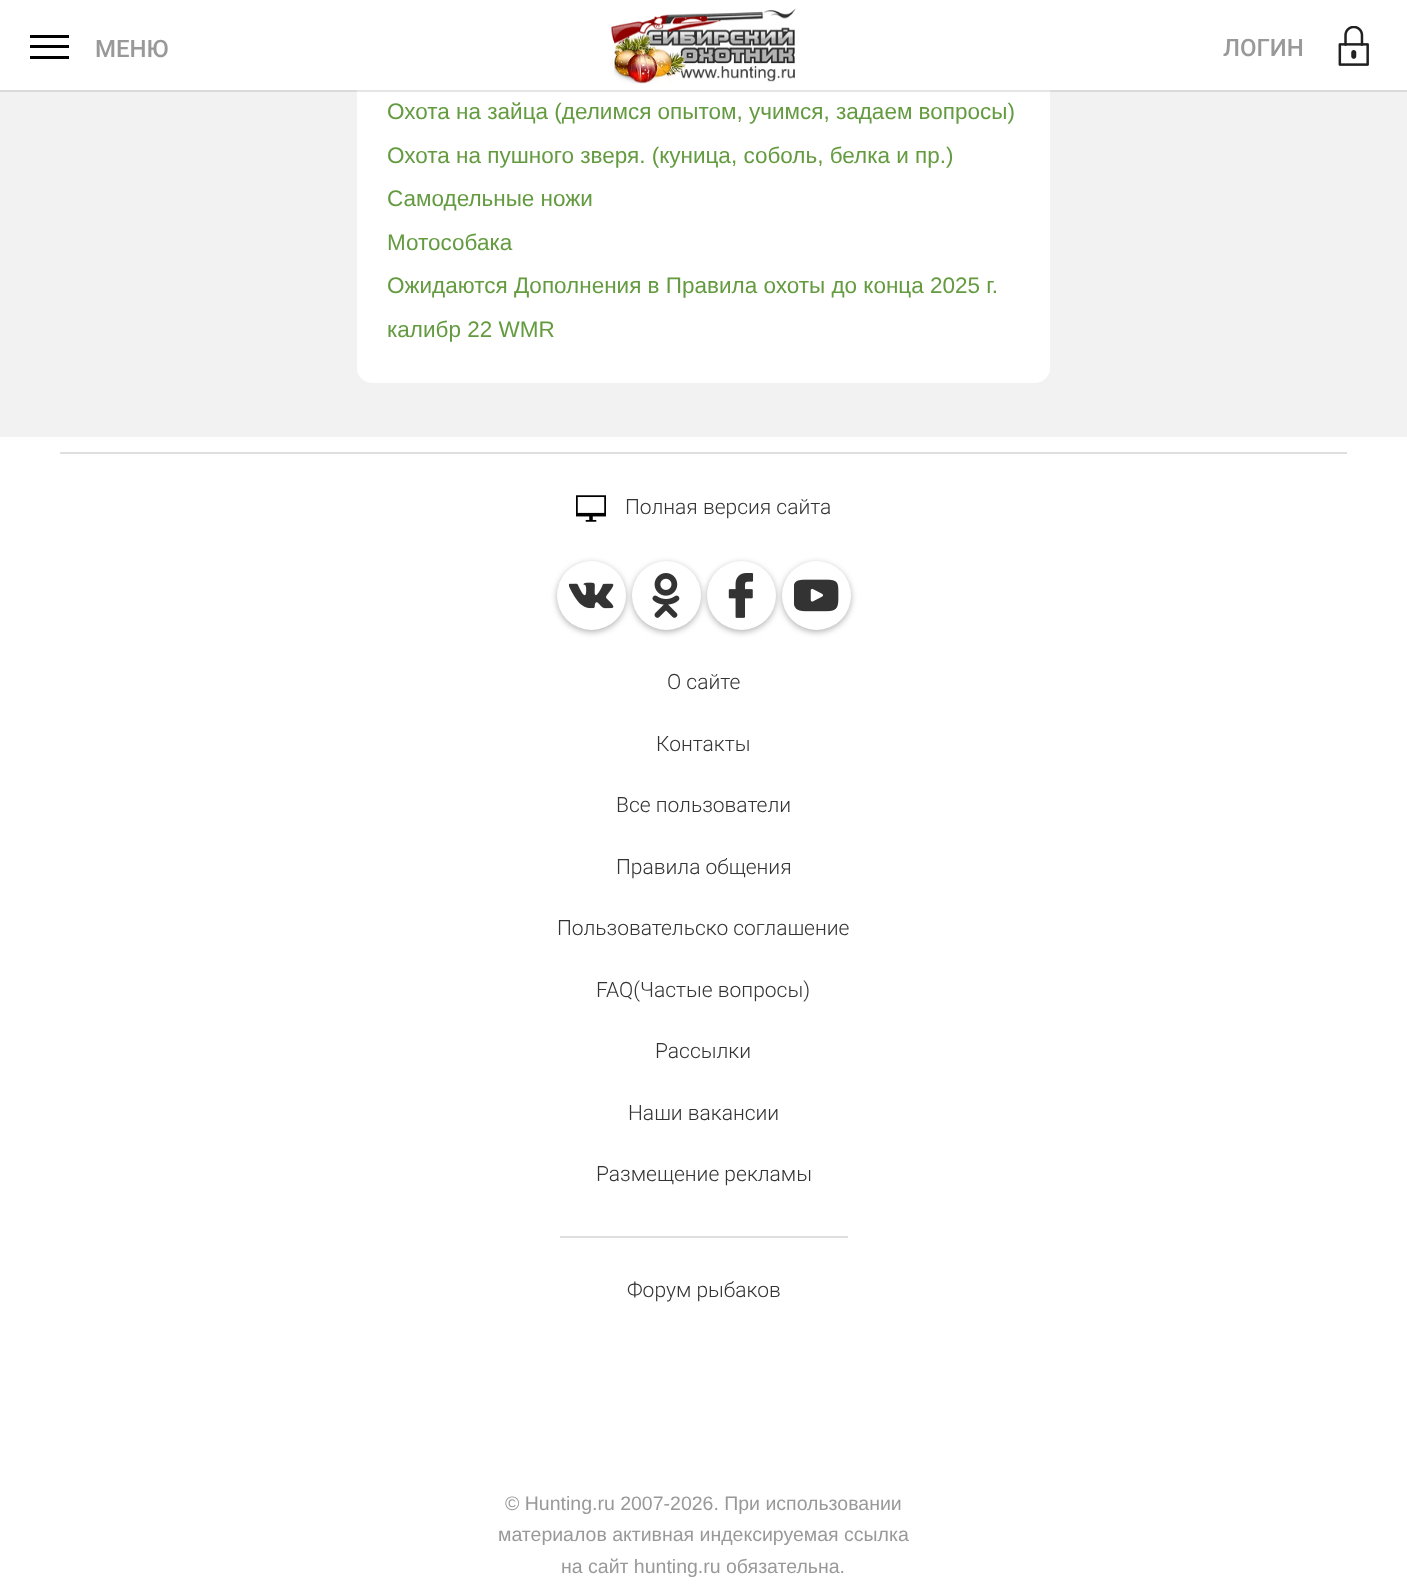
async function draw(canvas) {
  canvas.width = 1407
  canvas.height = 1590
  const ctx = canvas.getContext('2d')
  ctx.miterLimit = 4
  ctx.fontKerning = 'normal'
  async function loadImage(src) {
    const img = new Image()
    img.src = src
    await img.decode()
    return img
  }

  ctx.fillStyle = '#fff'
  ctx.fillRect(0, 0, 1407, 1590)
  ctx.fillStyle = '#000'
  ctx.fillRect(30, 35, 39, 3)
  ctx.fillRect(30, 45, 39, 3)
  ctx.fillRect(30, 56, 39, 3)
  ctx.font = '500 24px Roboto'
  ctx.fillStyle = '#999'
  ctx.fillText('МЕНЮ', 95, 57)
  ctx.fillStyle = '#f2f2f2'
  ctx.fillRect(0, 92, 1407, 345)
  ctx.fillStyle = '#dadada'
  ctx.fillRect(0, 90, 1407, 2)
  ctx.fillStyle = '#fff'
  ctx.beginPath()
  ctx.roundRect(357, -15, 693, 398, 15)
  ctx.fill()
  ctx.drawImage(await loadImage('image0.png'), 609, 8, 187, 76)
  ctx.fillStyle = '#999'
  ctx.fillText('ЛОГИН', 1223, 56)
  ctx.drawImage(await loadImage('image1.png'), 1338, 26, 31, 40)
  ctx.fillStyle = '#e6e6e6'
  ctx.fillRect(357, 90, 693, 2)
  ctx.font = '22.5px Liberation Sans'
  ctx.fillStyle = '#649b40'
  ctx.fillText('Охота на зайца (делимся опытом, учимся, задаем вопросы)', 387, 119)
  ctx.fillText('Охота на пушного зверя. (куница, соболь, белка и пр.)', 387, 163)
  ctx.fillText('Самодельные ножи', 387, 206)
  ctx.fillText('Мотособака', 387, 250)
  ctx.fillText('Ожидаются Дополнения в Правила охоты до конца 2025 г.', 387, 293)
  ctx.fillText('калибр 22 WMR', 387, 337)
  ctx.fillStyle = '#dfdfdf'
  ctx.fillRect(60, 452, 1287, 2)
  ctx.drawImage(await loadImage('image2.png'), 576, 495, 30, 27)
  ctx.font = '300 21px Roboto'
  ctx.fillStyle = '#333'
  ctx.fillText('Полная версия сайта', 625, 514)
  ctx.fillStyle = '#0000004d'
  ctx.filter = 'blur(3px)'
  ctx.beginPath()
  ctx.roundRect(557, 563, 69, 69, 34.5)
  ctx.fill()
  ctx.filter = 'none'
  ctx.fillStyle = '#fff'
  ctx.beginPath()
  ctx.arc(591.5, 595.5, 34.5, 0, 2 * Math.PI)
  ctx.fill()
  ctx.drawImage(await loadImage('image3.png'), 569, 582, 45, 27)
  ctx.fillStyle = '#0000004d'
  ctx.filter = 'blur(3px)'
  ctx.beginPath()
  ctx.roundRect(632, 563, 69, 69, 34.5)
  ctx.fill()
  ctx.filter = 'none'
  ctx.fillStyle = '#fff'
  ctx.beginPath()
  ctx.arc(666.5, 595.5, 34.5, 0, 2 * Math.PI)
  ctx.fill()
  ctx.drawImage(await loadImage('image4.png'), 652, 573, 28, 45)
  ctx.fillStyle = '#0000004d'
  ctx.filter = 'blur(3px)'
  ctx.beginPath()
  ctx.roundRect(707, 563, 69, 69, 34.5)
  ctx.fill()
  ctx.filter = 'none'
  ctx.fillStyle = '#fff'
  ctx.beginPath()
  ctx.arc(741.5, 595.5, 34.5, 0, 2 * Math.PI)
  ctx.fill()
  ctx.drawImage(await loadImage('image5.png'), 728, 573, 26, 45)
  ctx.fillStyle = '#0000004d'
  ctx.filter = 'blur(3px)'
  ctx.beginPath()
  ctx.roundRect(782, 563, 69, 69, 34.5)
  ctx.fill()
  ctx.filter = 'none'
  ctx.fillStyle = '#fff'
  ctx.beginPath()
  ctx.arc(816.5, 595.5, 34.5, 0, 2 * Math.PI)
  ctx.fill()
  ctx.drawImage(await loadImage('image6.png'), 794, 579, 45, 33)
  ctx.fillStyle = '#333'
  ctx.fillText('О сайте', 667, 689)
  ctx.fillText('Контакты', 656, 751)
  ctx.fillText('Все пользователи', 616, 812)
  ctx.fillText('Правила общения', 616, 874)
  ctx.fillText('Пользовательско соглашение', 557, 935)
  ctx.fillText('FAQ(Частые вопросы)', 596, 997)
  ctx.fillText('Рассылки', 655, 1058)
  ctx.fillText('Наши вакансии', 628, 1120)
  ctx.fillText('Размещение рекламы', 596, 1181)
  ctx.fillStyle = '#dfdfdf'
  ctx.fillRect(560, 1236, 288, 2)
  ctx.fillStyle = '#333'
  ctx.fillText('Форум рыбаков', 627, 1297)
  ctx.font = '19.5px Liberation Sans'
  ctx.fillStyle = '#999'
  ctx.fillText('© Hunting.ru 2007-2026. При использовании', 505, 1510)
  ctx.fillText('материалов активная индексируемая ссылка', 498, 1541)
  ctx.fillText('на сайт hunting.ru обязательна.', 561, 1573)
}

draw(document.querySelector('canvas'))
